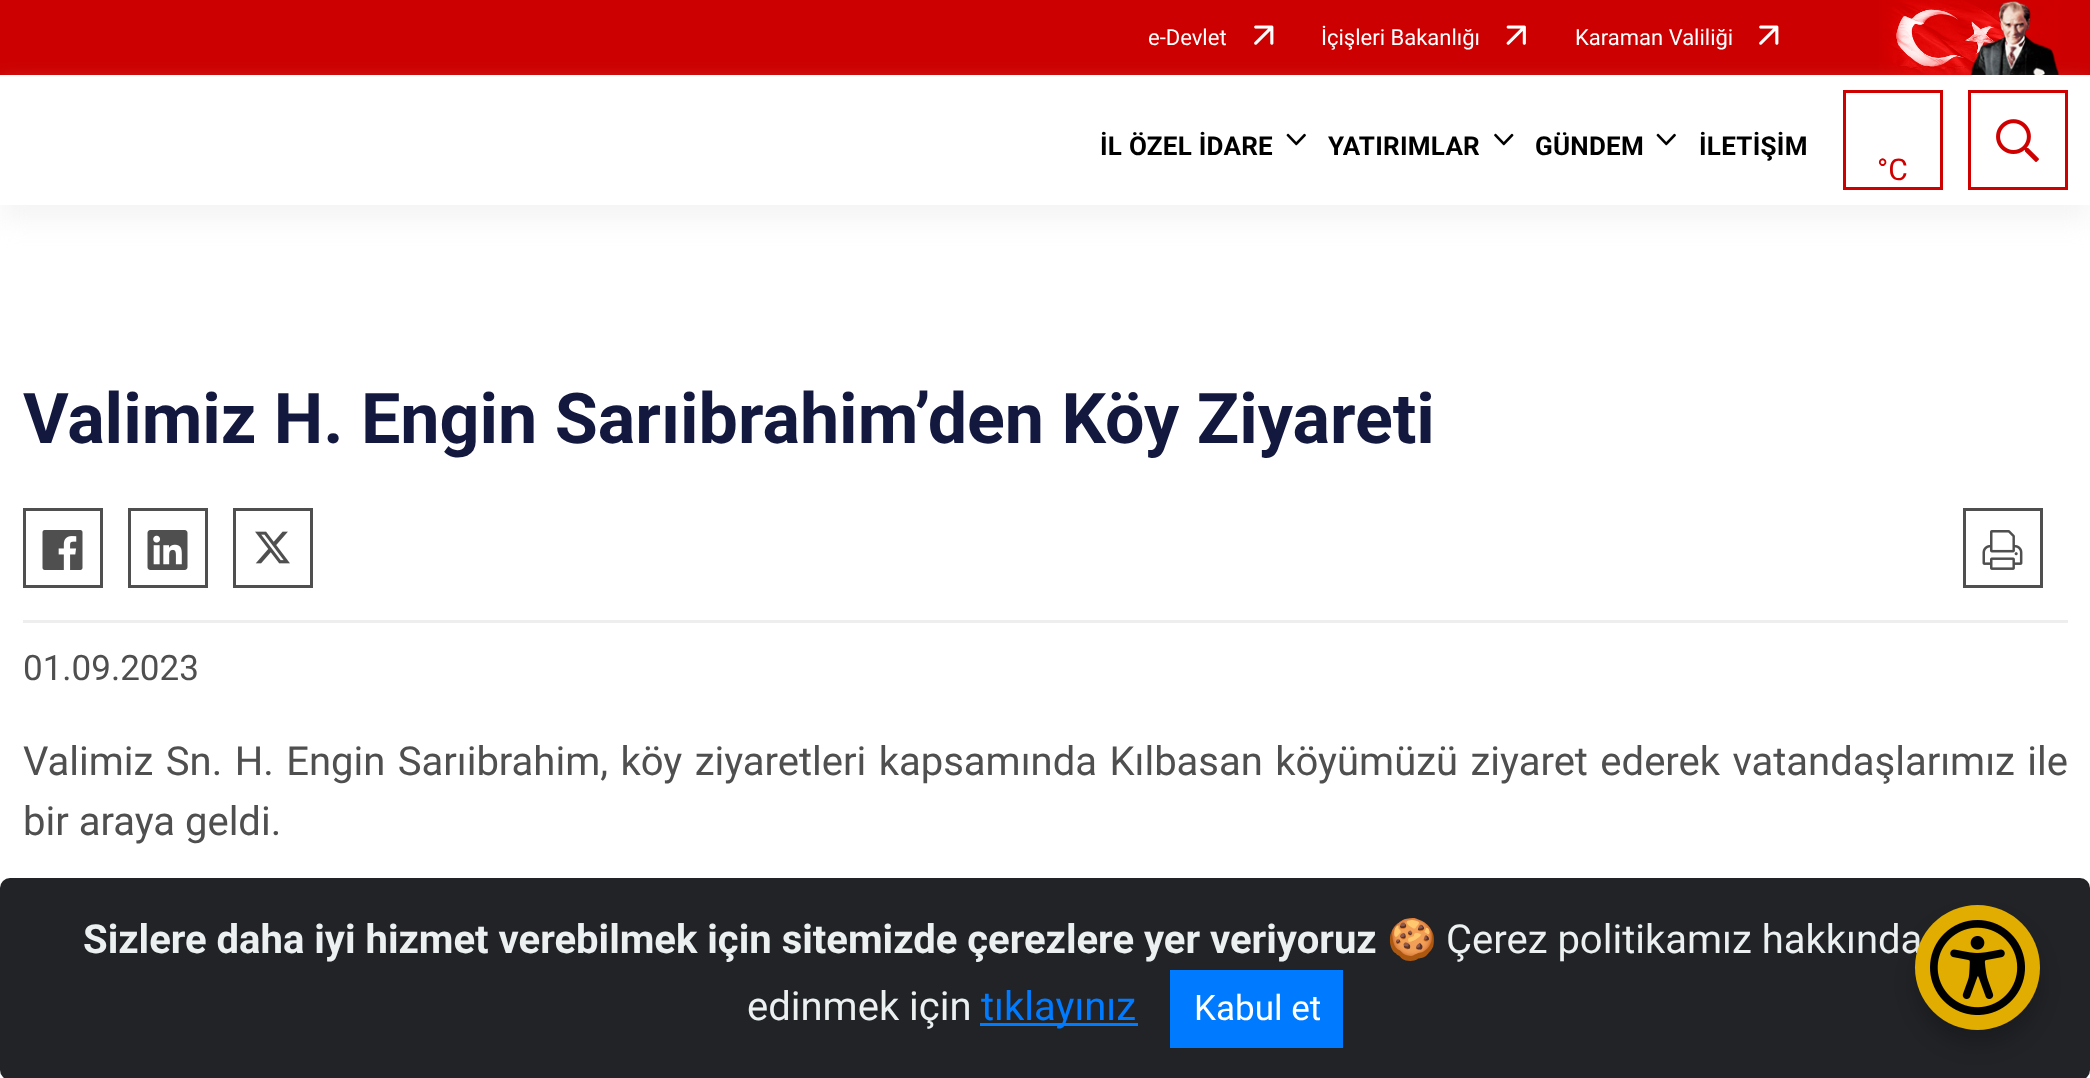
async function draw(canvas) {
  canvas.width = 2090
  canvas.height = 1078
  const ctx = canvas.getContext('2d')
  ctx.miterLimit = 4
  ctx.fontKerning = 'normal'
  async function loadImage(src) {
    const img = new Image()
    img.src = src
    await img.decode()
    return img
  }

  ctx.fillStyle = '#fff'
  ctx.fillRect(0, 0, 2090, 1078)
  ctx.fillStyle = '#c00'
  ctx.fillRect(0, 0, 2090, 75)
  ctx.font = '22px Roboto'
  ctx.fillStyle = '#fff'
  ctx.fillText('e-Devlet', 1148, 45)
  ctx.drawImage(await loadImage('image0.png'), 1254, 25, 20, 20)
  ctx.fillText('İçişleri Bakanlığı', 1321, 45)
  ctx.drawImage(await loadImage('image1.png'), 1506, 25, 20, 20)
  ctx.fillText('Karaman Valiliği', 1575, 45)
  ctx.drawImage(await loadImage('image0.png'), 1759, 25, 20, 20)
  ctx.drawImage(await loadImage('image2.png'), 1879, 0, 181, 75)
  ctx.save()
  ctx.beginPath()
  ctx.moveTo(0, 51)
  ctx.lineTo(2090, 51)
  ctx.lineTo(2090, 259)
  ctx.lineTo(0, 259)
  ctx.closePath()
  ctx.moveTo(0, 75)
  ctx.lineTo(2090, 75)
  ctx.lineTo(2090, 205)
  ctx.lineTo(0, 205)
  ctx.closePath()
  ctx.clip('evenodd')
  ctx.fillStyle = '#eeeeee9e'
  ctx.filter = 'blur(12.5px)'
  ctx.beginPath()
  ctx.rect(0, 90, 2090, 130)
  ctx.fill()
  ctx.filter = 'none'
  ctx.restore()
  ctx.letterSpacing = '0.25px'
  ctx.font = 'bold 26px Roboto'
  ctx.fillStyle = '#000'
  ctx.fillText('İL ÖZEL İDARE', 1100, 155)
  ctx.drawImage(await loadImage('image3.png'), 1286, 133, 20, 13)
  ctx.fillText('YATIRIMLAR', 1328, 155)
  ctx.drawImage(await loadImage('image4.png'), 1494, 133, 20, 13)
  ctx.fillText('GÜNDEM', 1535, 155)
  ctx.drawImage(await loadImage('image3.png'), 1656, 133, 20, 13)
  ctx.fillText('İLETİŞİM', 1699, 155)
  ctx.strokeStyle = '#ce0000'
  ctx.lineWidth = 3
  ctx.strokeRect(1844.5, 91.5, 97, 97)
  ctx.letterSpacing = '0px'
  ctx.font = '30px Roboto'
  ctx.fillStyle = '#ce0000'
  ctx.fillText('°C', 1877, 180)
  ctx.strokeRect(1969.5, 91.5, 97, 97)
  ctx.drawImage(await loadImage('image5.png'), 1996, 119, 43, 43)
  ctx.fillStyle = '#eee'
  ctx.fillRect(23, 620, 2045, 3)
  ctx.font = 'bold 70px Roboto'
  ctx.fillStyle = '#13183e'
  ctx.fillText('Valimiz H. Engin Sarıibrahim’den Köy Ziyareti', 23, 443)
  ctx.strokeStyle = '#4f4f4f'
  ctx.strokeRect(24.5, 509.5, 77, 77)
  ctx.drawImage(await loadImage('image6.png'), 42, 530, 41, 40)
  ctx.strokeRect(129.5, 509.5, 77, 77)
  ctx.drawImage(await loadImage('image7.png'), 147, 530, 41, 40)
  ctx.strokeRect(234.5, 509.5, 77, 77)
  ctx.drawImage(await loadImage('image8.png'), 255, 531, 35, 33)
  ctx.strokeRect(1964.5, 509.5, 77, 77)
  ctx.drawImage(await loadImage('image9.png'), 1982, 530, 41, 40)
  ctx.font = '35px Roboto'
  ctx.fillStyle = '#4f4f4f'
  ctx.fillText('01.09.2023', 23, 680)
  ctx.wordSpacing = '2.5px'
  ctx.font = '40px Roboto'
  ctx.fillText('Valimiz Sn. H. Engin Sarıibrahim, köy ziyaretleri kapsamında Kılbasan köyümüzü ziyaret ederek vatandaşlarımız ile', 23, 775)
  ctx.wordSpacing = '0px'
  ctx.fillText('bir araya geldi.', 23, 835)
  ctx.fillStyle = '#212327'
  ctx.beginPath()
  ctx.roundRect(0, 878, 2090, 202, 10)
  ctx.fill()
  ctx.font = 'bold 40px Roboto'
  ctx.fillStyle = '#ecf0f1'
  ctx.fillText('Sizlere daha iyi hizmet verebilmek için sitemizde çerezlere yer veriyoruz', 83, 953)
  ctx.font = '40px Noto Color Emoji'
  ctx.fillText('🍪', 1387, 953)
  ctx.font = '40px Roboto'
  ctx.fillText('Çerez politikamız hakkında', 1446, 953)
  ctx.fillText('edinmek için', 747, 1020)
  ctx.fillStyle = '#007bff'
  ctx.fillRect(980, 1023, 158, 3)
  ctx.fillText('tıklayınız', 981, 1020)
  ctx.fillRect(1170, 970, 173, 78)
  ctx.font = '35px Roboto'
  ctx.fillStyle = '#fff'
  ctx.fillText('Kabul et', 1194, 1020)
  ctx.fillStyle = '#00000033'
  ctx.filter = 'blur(10px)'
  ctx.beginPath()
  ctx.roundRect(1915, 920, 125, 125, 62.5)
  ctx.fill()
  ctx.filter = 'none'
  ctx.fillStyle = '#e1ad01'
  ctx.beginPath()
  ctx.arc(1977.5, 967.5, 62.5, 0, 2 * Math.PI)
  ctx.fill()
  ctx.drawImage(await loadImage('image10.png'), 1930, 920, 95, 95)
}

draw(document.querySelector('canvas'))
